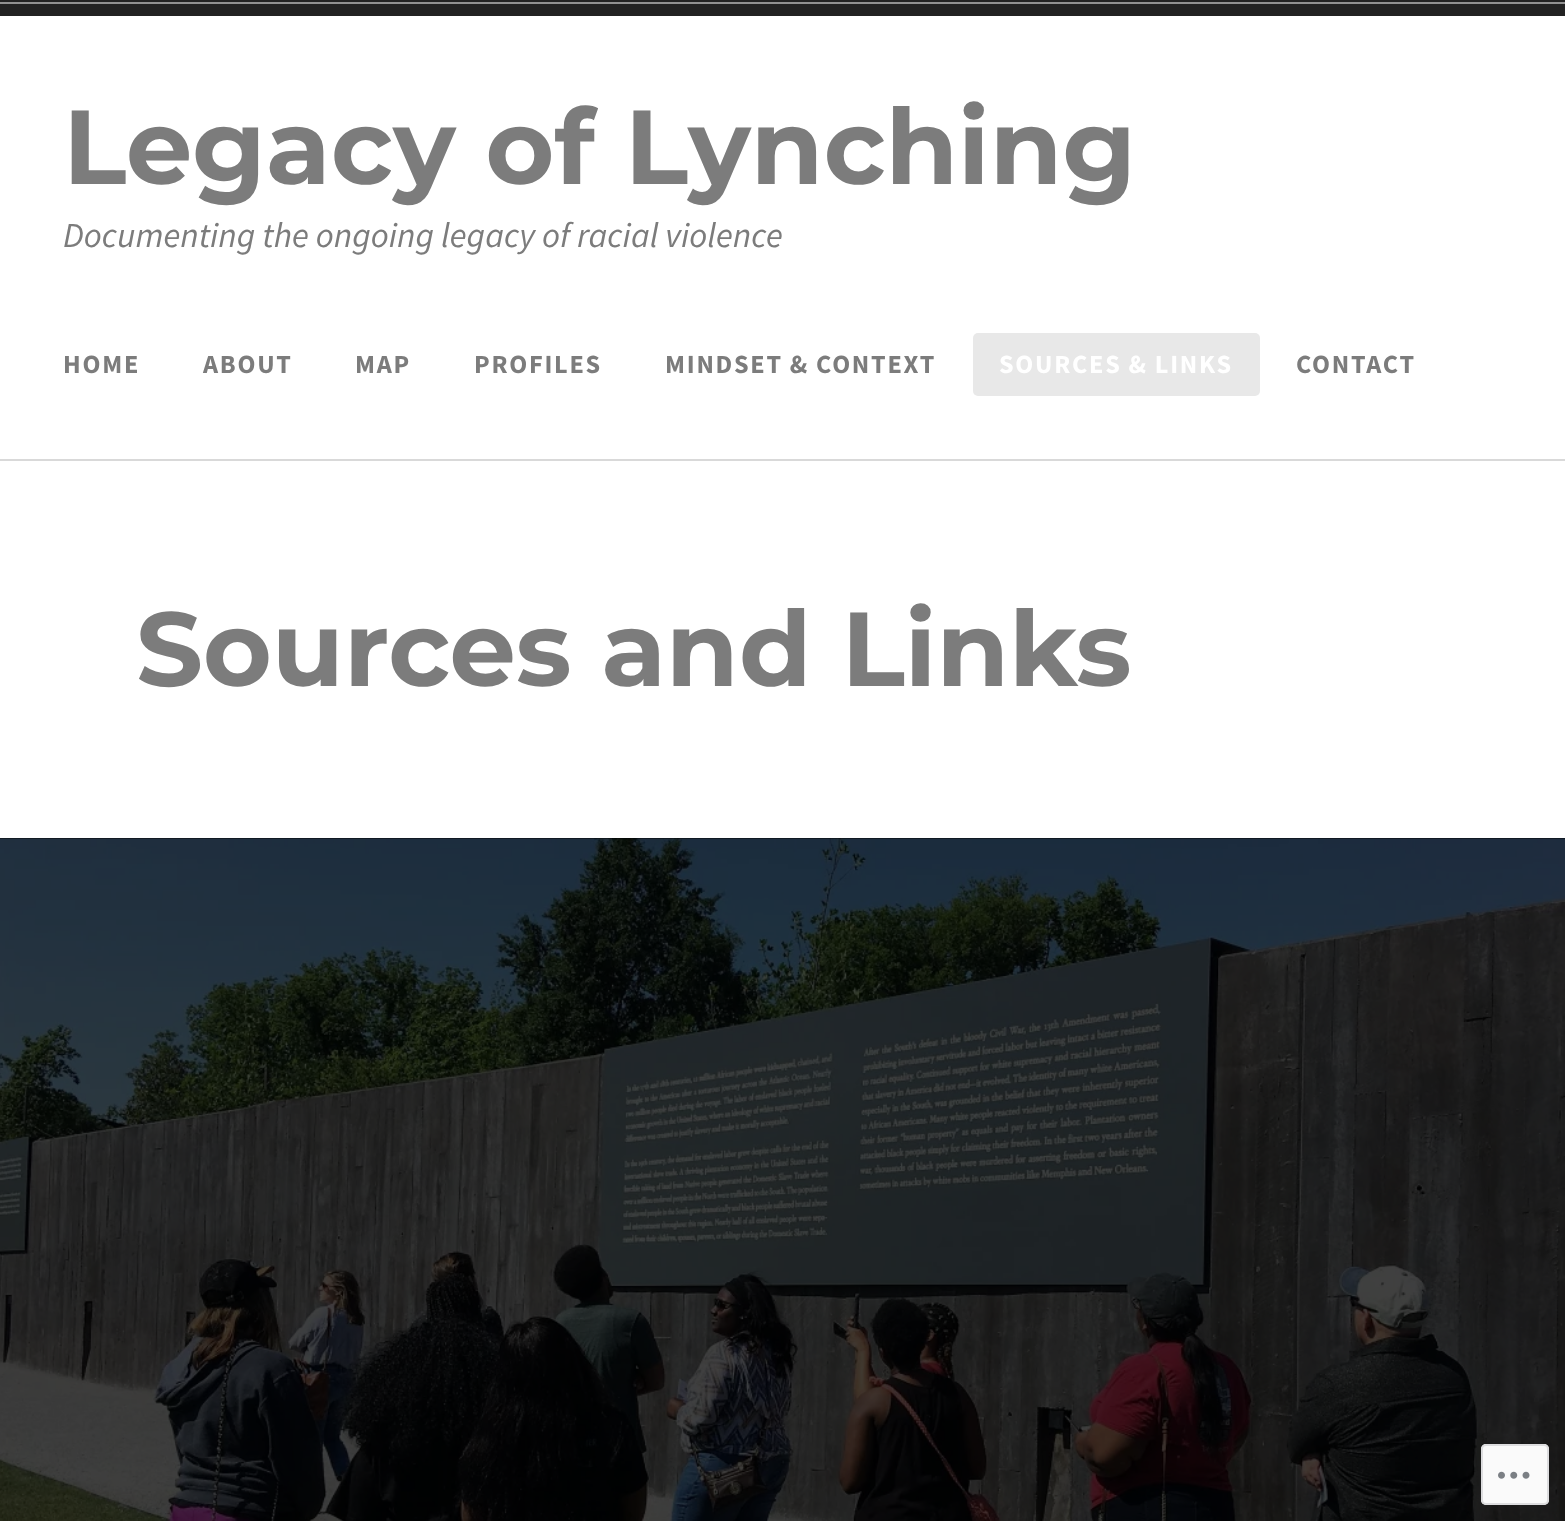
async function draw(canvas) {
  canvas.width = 1565
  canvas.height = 1521
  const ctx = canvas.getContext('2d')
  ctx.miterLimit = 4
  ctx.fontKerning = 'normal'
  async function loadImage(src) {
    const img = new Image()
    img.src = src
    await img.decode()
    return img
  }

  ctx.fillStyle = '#fff'
  ctx.fillRect(0, 0, 1565, 1521)
  ctx.fillStyle = '#222'
  ctx.fillRect(0, 0, 1565, 16)
  ctx.fillStyle = '#d9d9d9'
  ctx.fillRect(0, 459, 1565, 2)
  ctx.fillStyle = '#919191'
  ctx.fillRect(0, 2, 1565, 2)
  ctx.font = 'bold 105px Montserrat'
  ctx.fillStyle = '#7c7c7c'
  ctx.fillText('Legacy of Lynching', 63, 184)
  ctx.font = 'italic 35px Source Sans Pro'
  ctx.fillText('Documenting the ongoing legacy of racial violence', 63, 247)
  ctx.letterSpacing = '1.75px'
  ctx.font = 'bold 26.25px Source Sans Pro'
  ctx.fillText('HOME', 63, 373)
  ctx.fillText('ABOUT', 203, 373)
  ctx.fillText('MAP', 355, 373)
  ctx.fillText('PROFILES', 474, 373)
  ctx.fillText('MINDSET & CONTEXT', 665, 373)
  ctx.fillStyle = '#e8e8e8'
  ctx.beginPath()
  ctx.roundRect(973, 333, 287, 63, 5)
  ctx.fill()
  ctx.fillStyle = '#fff'
  ctx.fillText('SOURCES & LINKS', 999, 373)
  ctx.fillStyle = '#7c7c7c'
  ctx.fillText('CONTACT', 1296, 373)
  ctx.letterSpacing = '0px'
  ctx.font = 'bold 105px Montserrat'
  ctx.fillText('Sources and Links', 136, 686)
  ctx.fillStyle = '#000'
  ctx.fillRect(0, 838, 1565, 1)
  ctx.drawImage(await loadImage('image0.png'), 0, 838, 1565, 683)
  ctx.fillStyle = '#fffffffa'
  ctx.beginPath()
  ctx.roundRect(1481, 1444, 68, 61, 5)
  ctx.fill()
  ctx.beginPath()
  ctx.roundRect(1482, 1445, 66, 59, 4)
  ctx.strokeStyle = '#dcdcdefa'
  ctx.lineWidth = 2
  ctx.stroke()
  ctx.drawImage(await loadImage('image1.png'), 1498, 1471, 32, 8)
}

draw(document.querySelector('canvas'))
